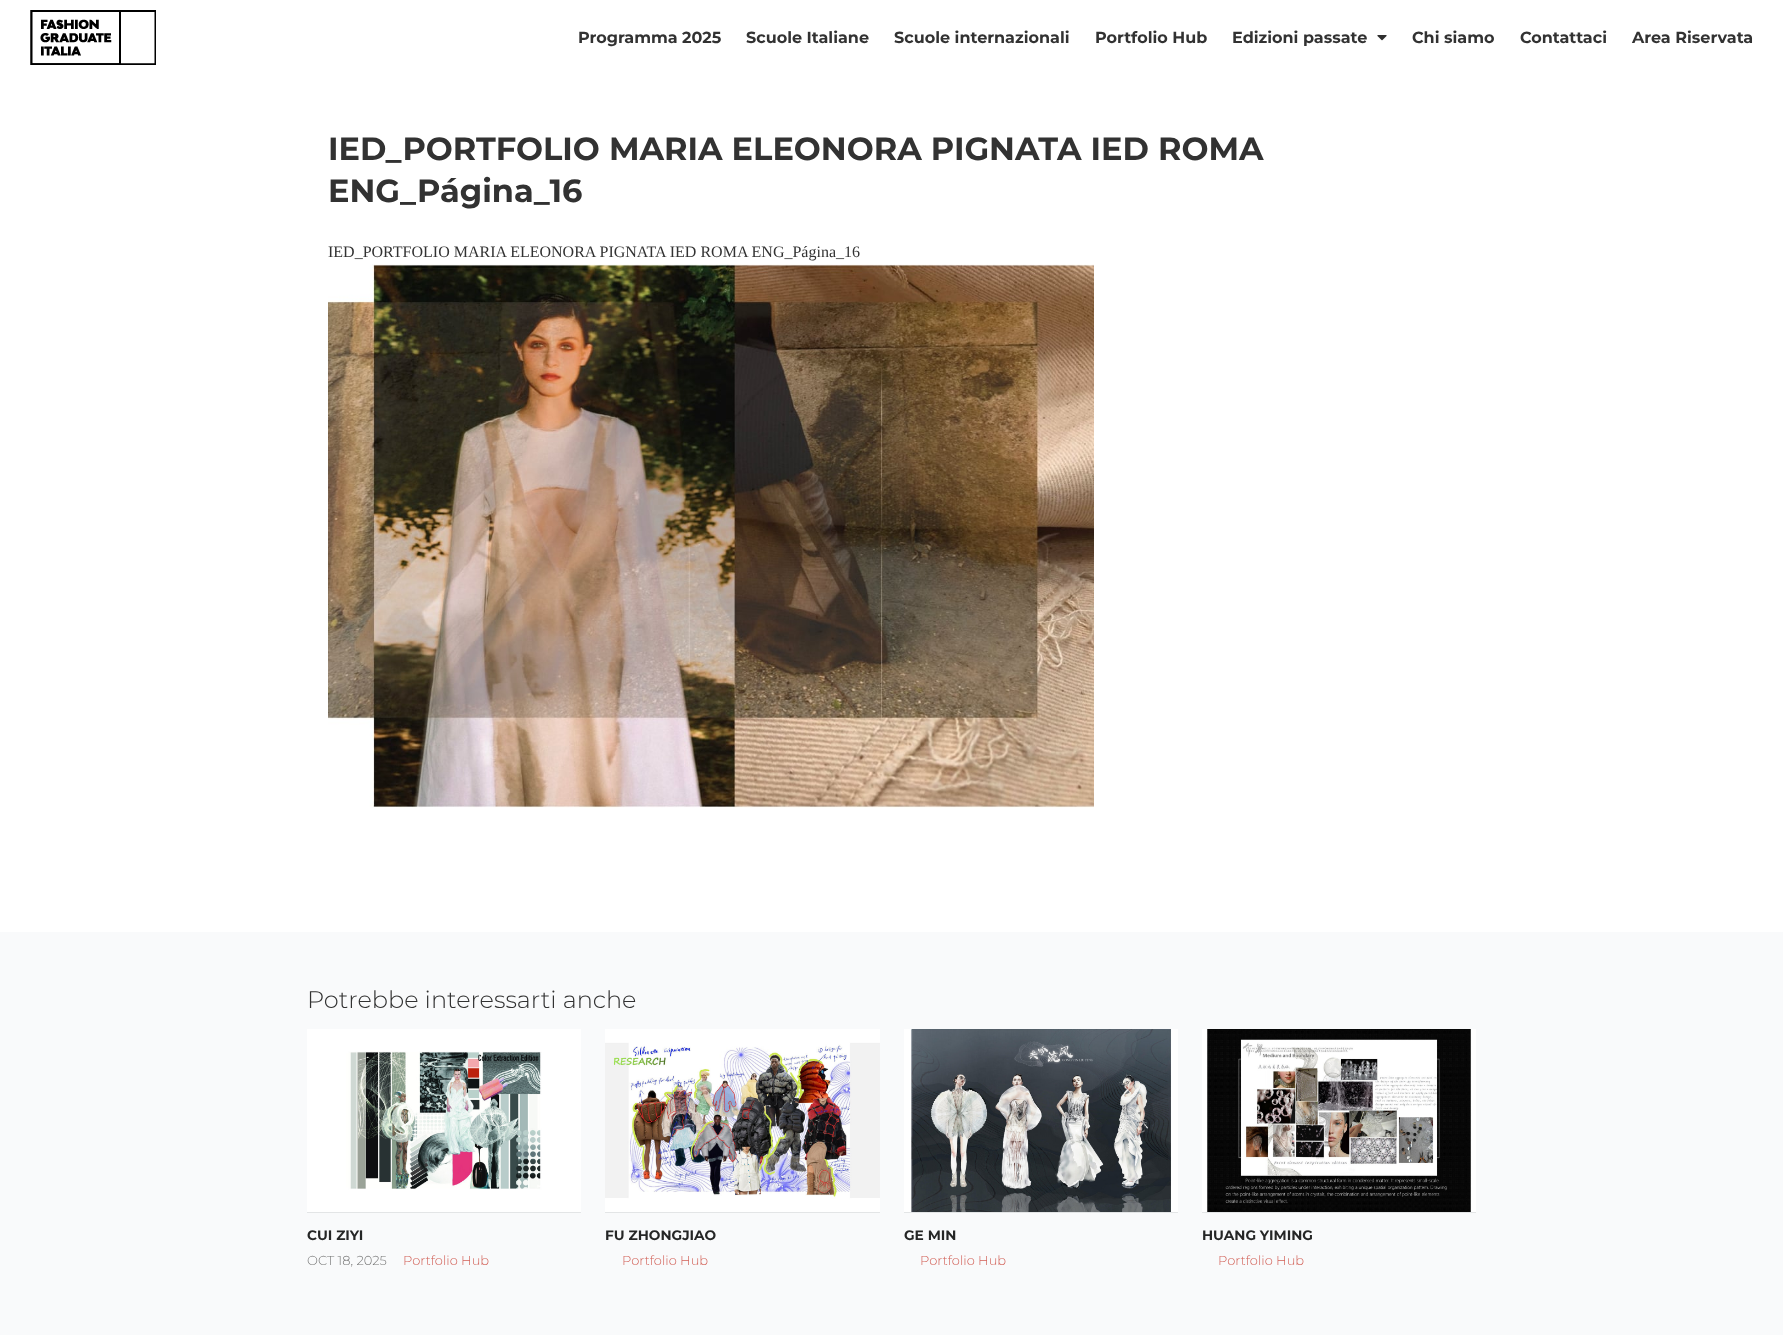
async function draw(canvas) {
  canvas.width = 1783
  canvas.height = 1335
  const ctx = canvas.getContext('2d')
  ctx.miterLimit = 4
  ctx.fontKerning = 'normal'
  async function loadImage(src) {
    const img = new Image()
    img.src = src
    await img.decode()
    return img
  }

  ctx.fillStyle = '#fff'
  ctx.fillRect(0, 0, 1783, 1335)
  ctx.drawImage(await loadImage('image0.png'), 30, 10, 126, 55)
  ctx.font = 'bold 16px Montserrat'
  ctx.fillStyle = '#323232'
  ctx.fillText('Programma 2025', 578, 43)
  ctx.fillText('Scuole Italiane', 746, 43)
  ctx.fillText('Scuole internazionali', 894, 43)
  ctx.fillText('Portfolio Hub', 1095, 43)
  ctx.fillText('Edizioni passate', 1232, 43)
  ctx.drawImage(await loadImage('image1.png'), 1377, 35, 10, 6)
  ctx.fillText('Chi siamo', 1412, 43)
  ctx.fillText('Contattaci', 1520, 43)
  ctx.fillText('Area Riservata', 1632, 43)
  ctx.font = 'bold 32px Montserrat'
  ctx.fillText('IED_PORTFOLIO MARIA ELEONORA PIGNATA IED ROMA', 328, 160)
  ctx.fillText('ENG_Página_16', 328, 202)
  ctx.font = '16px Liberation Serif'
  ctx.fillText('IED_PORTFOLIO MARIA ELEONORA PIGNATA IED ROMA ENG_Página_16', 328, 257)
  ctx.drawImage(await loadImage('image2.png'), 328, 264, 766, 544)
  ctx.fillStyle = '#f9fafb'
  ctx.fillRect(0, 932, 1783, 403)
  ctx.font = '300 24px Montserrat'
  ctx.fillStyle = '#323232'
  ctx.fillText('Potrebbe interessarti anche', 307, 1008)
  ctx.drawImage(await loadImage('image3.png'), 307, 1029, 274, 183)
  ctx.fillStyle = '#e3e5e6'
  ctx.fillRect(307, 1212, 274, 1)
  ctx.font = 'bold 13.75px Montserrat'
  ctx.fillStyle = '#252626'
  ctx.fillText('CUI ZIYI', 307, 1240)
  ctx.font = '300 13px Montserrat'
  ctx.fillStyle = '#767676'
  ctx.fillText('OCT 18, 2025', 307, 1265)
  ctx.fillStyle = '#d26158'
  ctx.fillText('Portfolio Hub', 403, 1265)
  ctx.drawImage(await loadImage('image4.png'), 605, 1029, 275, 183)
  ctx.fillStyle = '#e3e5e6'
  ctx.fillRect(605, 1212, 275, 1)
  ctx.font = 'bold 13.75px Montserrat'
  ctx.fillStyle = '#252626'
  ctx.fillText('FU ZHONGJIAO', 605, 1240)
  ctx.font = '300 13px Montserrat'
  ctx.fillStyle = '#d26158'
  ctx.fillText('Portfolio Hub', 622, 1265)
  ctx.drawImage(await loadImage('image5.png'), 904, 1029, 274, 183)
  ctx.fillStyle = '#e3e5e6'
  ctx.fillRect(904, 1212, 274, 1)
  ctx.font = 'bold 13.75px Montserrat'
  ctx.fillStyle = '#252626'
  ctx.fillText('GE MIN', 904, 1240)
  ctx.font = '300 13px Montserrat'
  ctx.fillStyle = '#d26158'
  ctx.fillText('Portfolio Hub', 920, 1265)
  ctx.drawImage(await loadImage('image6.png'), 1202, 1029, 274, 183)
  ctx.fillStyle = '#e3e5e6'
  ctx.fillRect(1202, 1212, 274, 1)
  ctx.font = 'bold 13.75px Montserrat'
  ctx.fillStyle = '#252626'
  ctx.fillText('HUANG YIMING', 1202, 1240)
  ctx.font = '300 13px Montserrat'
  ctx.fillStyle = '#d26158'
  ctx.fillText('Portfolio Hub', 1218, 1265)
}

draw(document.querySelector('canvas'))
